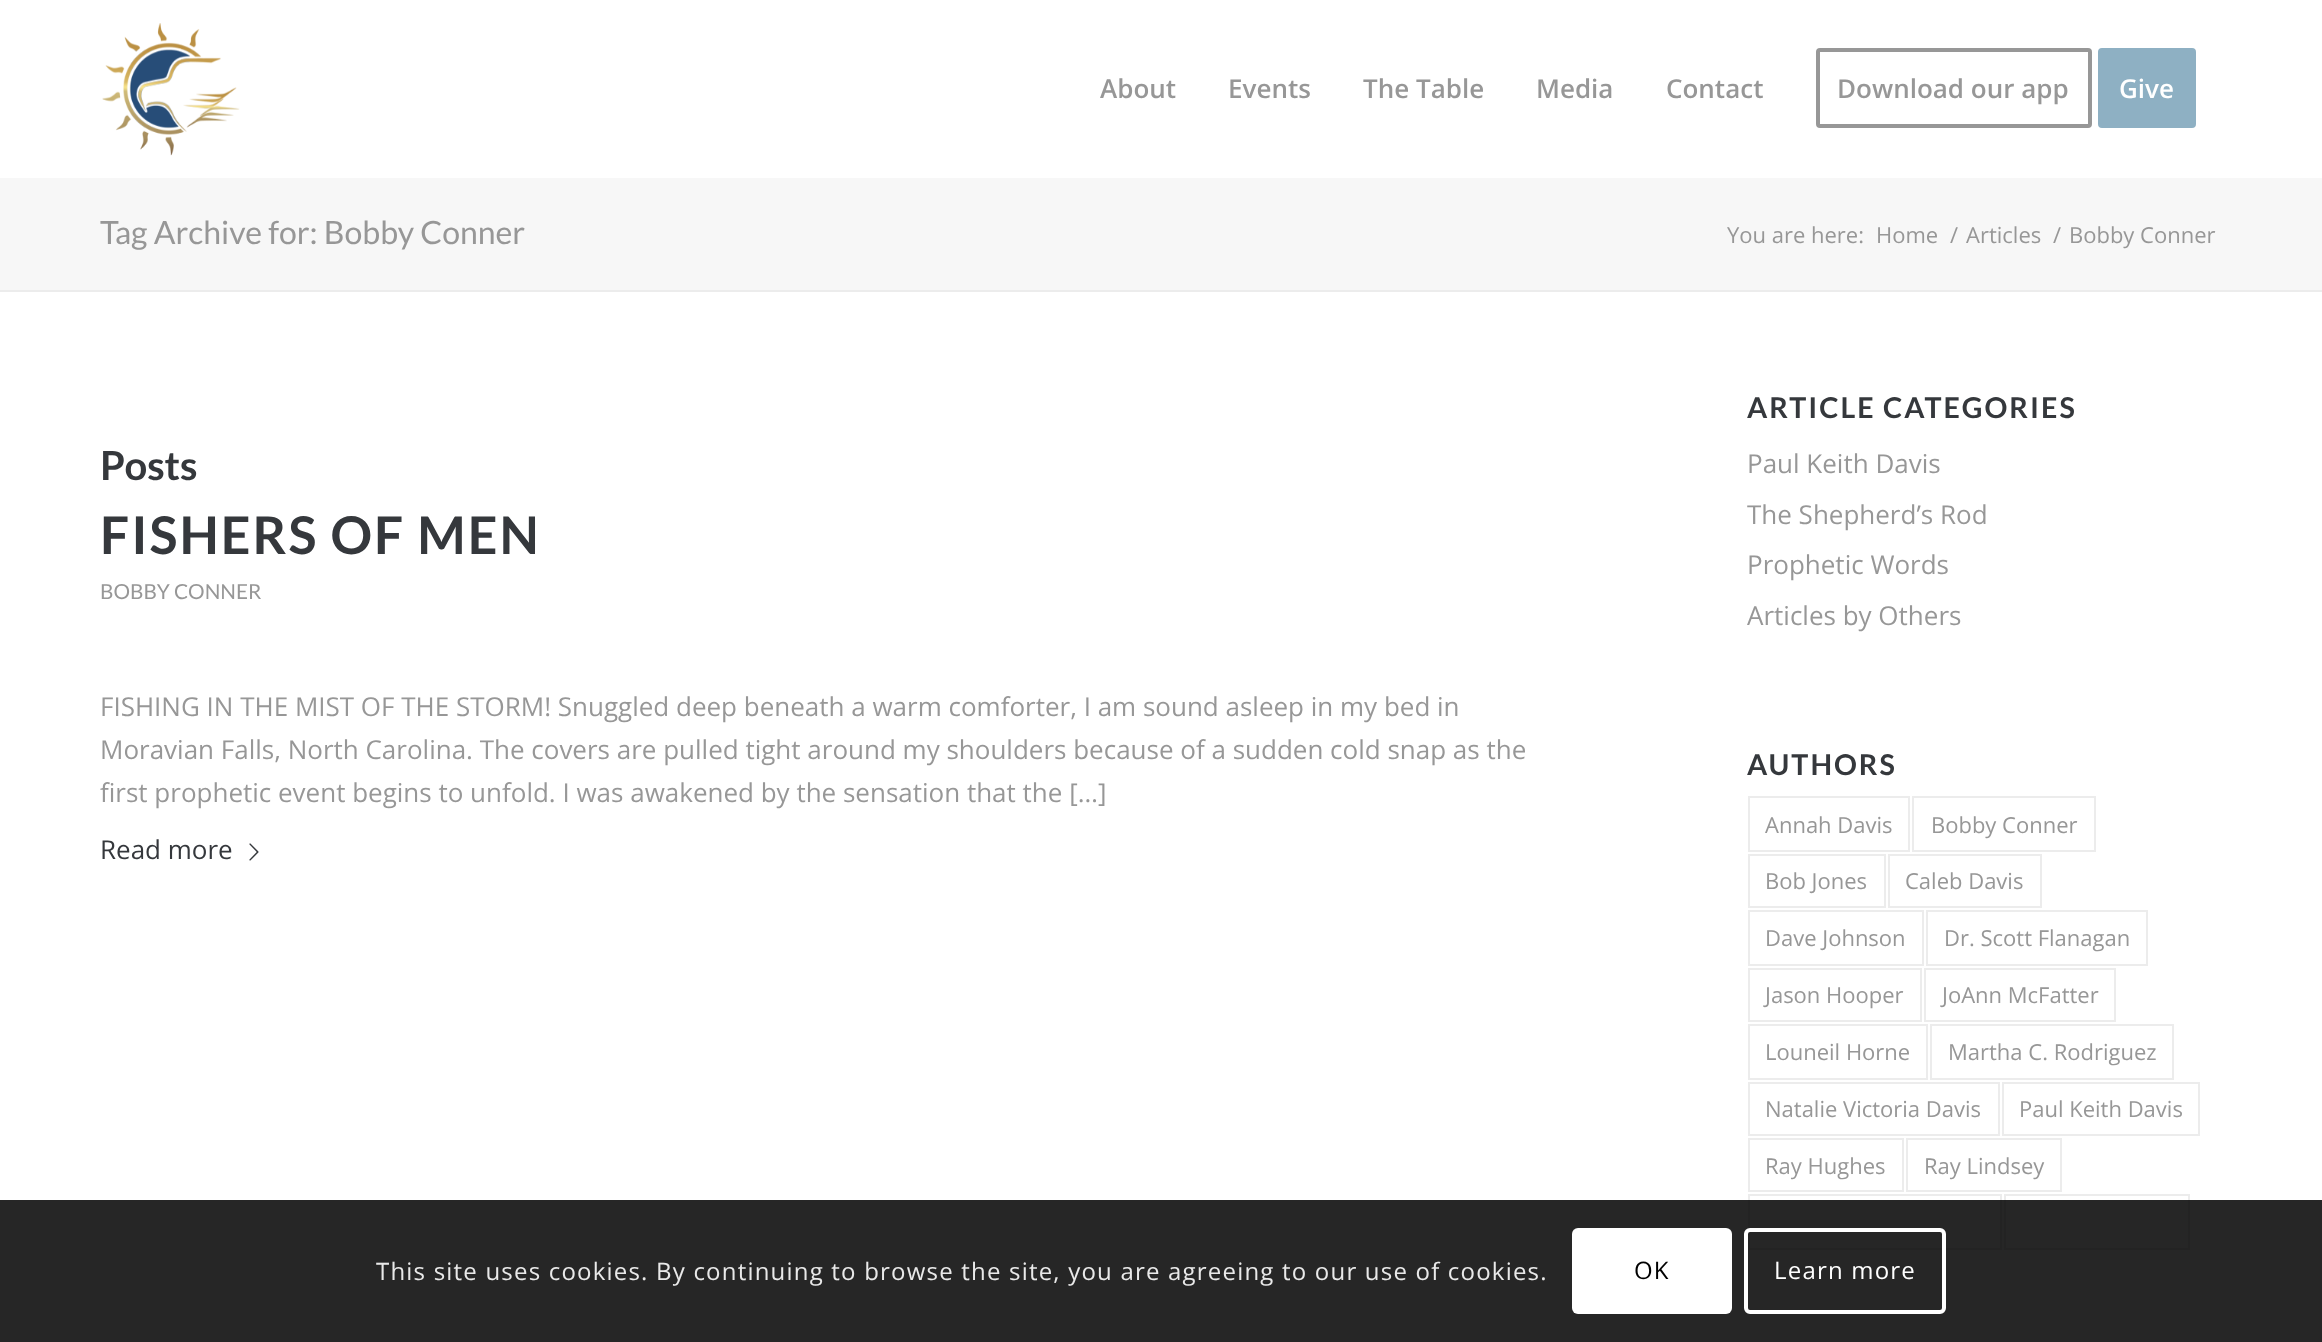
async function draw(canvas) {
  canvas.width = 2322
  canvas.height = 1342
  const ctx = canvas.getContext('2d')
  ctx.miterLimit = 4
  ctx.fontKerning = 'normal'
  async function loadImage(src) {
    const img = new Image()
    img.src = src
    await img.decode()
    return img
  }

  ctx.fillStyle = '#fff'
  ctx.fillRect(0, 0, 2322, 1342)
  ctx.drawImage(await loadImage('image0.png'), 102, 23, 138, 133)
  ctx.font = '600 26px Open Sans'
  ctx.fillStyle = '#979797'
  ctx.fillText('About', 1100, 98)
  ctx.fillText('Events', 1228, 98)
  ctx.fillText('The Table', 1363, 98)
  ctx.fillText('Media', 1536, 98)
  ctx.fillText('Contact', 1666, 98)
  ctx.beginPath()
  ctx.roundRect(1818, 50, 272, 76, 2)
  ctx.strokeStyle = '#979797'
  ctx.lineWidth = 4
  ctx.stroke()
  ctx.fillText('Download our app', 1837, 98)
  ctx.fillStyle = '#8eb0c3'
  ctx.beginPath()
  ctx.roundRect(2100, 50, 94, 76, 2)
  ctx.fill()
  ctx.strokeStyle = '#8eb0c3'
  ctx.stroke()
  ctx.fillStyle = '#fff'
  ctx.fillText('Give', 2119, 98)
  ctx.fillStyle = '#f7f7f7'
  ctx.fillRect(0, 178, 2322, 112)
  ctx.font = '32px Lato'
  ctx.fillStyle = '#979797'
  ctx.fillText('Tag Archive for: Bobby Conner', 100, 244)
  ctx.font = '22px Open Sans'
  ctx.fillText('You are here:', 1727, 243)
  ctx.fillText('Home', 1876, 243)
  ctx.fillText('/', 1950, 243)
  ctx.fillText('Articles', 1966, 243)
  ctx.fillText('/', 2053, 243)
  ctx.fillText('Bobby Conner', 2069, 243)
  ctx.fillStyle = '#ececec'
  ctx.fillRect(0, 290, 2322, 2)
  ctx.font = 'bold 40px Lato'
  ctx.fillStyle = '#35383c'
  ctx.fillText('Posts', 100, 480)
  ctx.letterSpacing = '2px'
  ctx.font = 'bold 52px Lato'
  ctx.fillText('FISHERS OF MEN', 100, 554)
  ctx.letterSpacing = '0px'
  ctx.font = '20.75px Lato'
  ctx.fillStyle = '#979797'
  ctx.fillText('BOBBY CONNER', 100, 599)
  ctx.font = '26px Open Sans'
  ctx.fillText('FISHING IN THE MIST OF THE STORM! Snuggled deep beneath a warm comforter, I am sound asleep in my bed in', 100, 716)
  ctx.fillText('Moravian Falls, North Carolina. The covers are pulled tight around my shoulders because of a sudden cold snap as the', 100, 759)
  ctx.fillText('first prophetic event begins to unfold. I was awakened by the sensation that the […]', 100, 802)
  ctx.fillStyle = '#35383c'
  ctx.fillText('Read more', 100, 859)
  ctx.drawImage(await loadImage('image1.png'), 249, 843, 10, 18)
  ctx.letterSpacing = '2px'
  ctx.font = 'bold 28.6px Lato'
  ctx.fillText('ARTICLE CATEGORIES', 1747, 418)
  ctx.letterSpacing = '0px'
  ctx.font = '26px Open Sans'
  ctx.fillStyle = '#979797'
  ctx.fillText('Paul Keith Davis', 1747, 473)
  ctx.fillText('The Shepherd’s Rod', 1747, 524)
  ctx.fillText('Prophetic Words', 1747, 574)
  ctx.fillText('Articles by Others', 1747, 625)
  ctx.letterSpacing = '2px'
  ctx.font = 'bold 28.6px Lato'
  ctx.fillStyle = '#35383c'
  ctx.fillText('AUTHORS', 1747, 775)
  ctx.strokeStyle = '#ececec'
  ctx.lineWidth = 2
  ctx.strokeRect(1749, 797, 160, 54)
  ctx.letterSpacing = '0px'
  ctx.font = '22px Open Sans'
  ctx.fillStyle = '#979797'
  ctx.fillText('Annah Davis', 1765, 833)
  ctx.strokeRect(1913, 797, 182, 54)
  ctx.fillText('Bobby Conner', 1931, 833)
  ctx.strokeRect(1749, 855, 136, 52)
  ctx.fillText('Bob Jones', 1765, 889)
  ctx.strokeRect(1889, 855, 152, 52)
  ctx.fillText('Caleb Davis', 1905, 889)
  ctx.strokeRect(1749, 911, 174, 54)
  ctx.fillText('Dave Johnson', 1765, 946)
  ctx.strokeRect(1927, 911, 220, 54)
  ctx.fillText('Dr. Scott Flanagan', 1944, 946)
  ctx.strokeRect(1749, 969, 172, 52)
  ctx.fillText('Jason Hooper', 1765, 1003)
  ctx.strokeRect(1925, 969, 190, 52)
  ctx.fillText('JoAnn McFatter', 1942, 1003)
  ctx.strokeRect(1749, 1025, 178, 54)
  ctx.fillText('Louneil Horne', 1765, 1060)
  ctx.strokeRect(1931, 1025, 242, 54)
  ctx.fillText('Martha C. Rodriguez', 1948, 1060)
  ctx.strokeRect(1749, 1083, 250, 52)
  ctx.fillText('Natalie Victoria Davis', 1765, 1117)
  ctx.strokeRect(2003, 1083, 196, 52)
  ctx.fillText('Paul Keith Davis', 2019, 1117)
  ctx.strokeRect(1749, 1139, 154, 52)
  ctx.fillText('Ray Hughes', 1765, 1174)
  ctx.strokeRect(1907, 1139, 154, 52)
  ctx.fillText('Ray Lindsey', 1924, 1174)
  ctx.strokeRect(1749, 1195, 252, 54)
  ctx.strokeRect(2005, 1195, 184, 54)
  ctx.fillStyle = '#000000d9'
  ctx.fillRect(0, 1200, 2322, 142)
  ctx.letterSpacing = '1.2px'
  ctx.font = '24px Open Sans'
  ctx.fillStyle = '#e9e9e9'
  ctx.fillText('This site uses cookies. By continuing to browse the site, you are agreeing to our use of cookies.', 376, 1280)
  ctx.fillStyle = '#fff'
  ctx.beginPath()
  ctx.roundRect(1572, 1228, 160, 86, 6)
  ctx.fill()
  ctx.fillStyle = '#000'
  ctx.fillText('OK', 1634, 1279)
  ctx.beginPath()
  ctx.roundRect(1746, 1230, 198, 82, 4)
  ctx.strokeStyle = '#fff'
  ctx.lineWidth = 4
  ctx.stroke()
  ctx.fillStyle = '#fff'
  ctx.fillText('Learn more', 1774, 1279)
}

draw(document.querySelector('canvas'))
